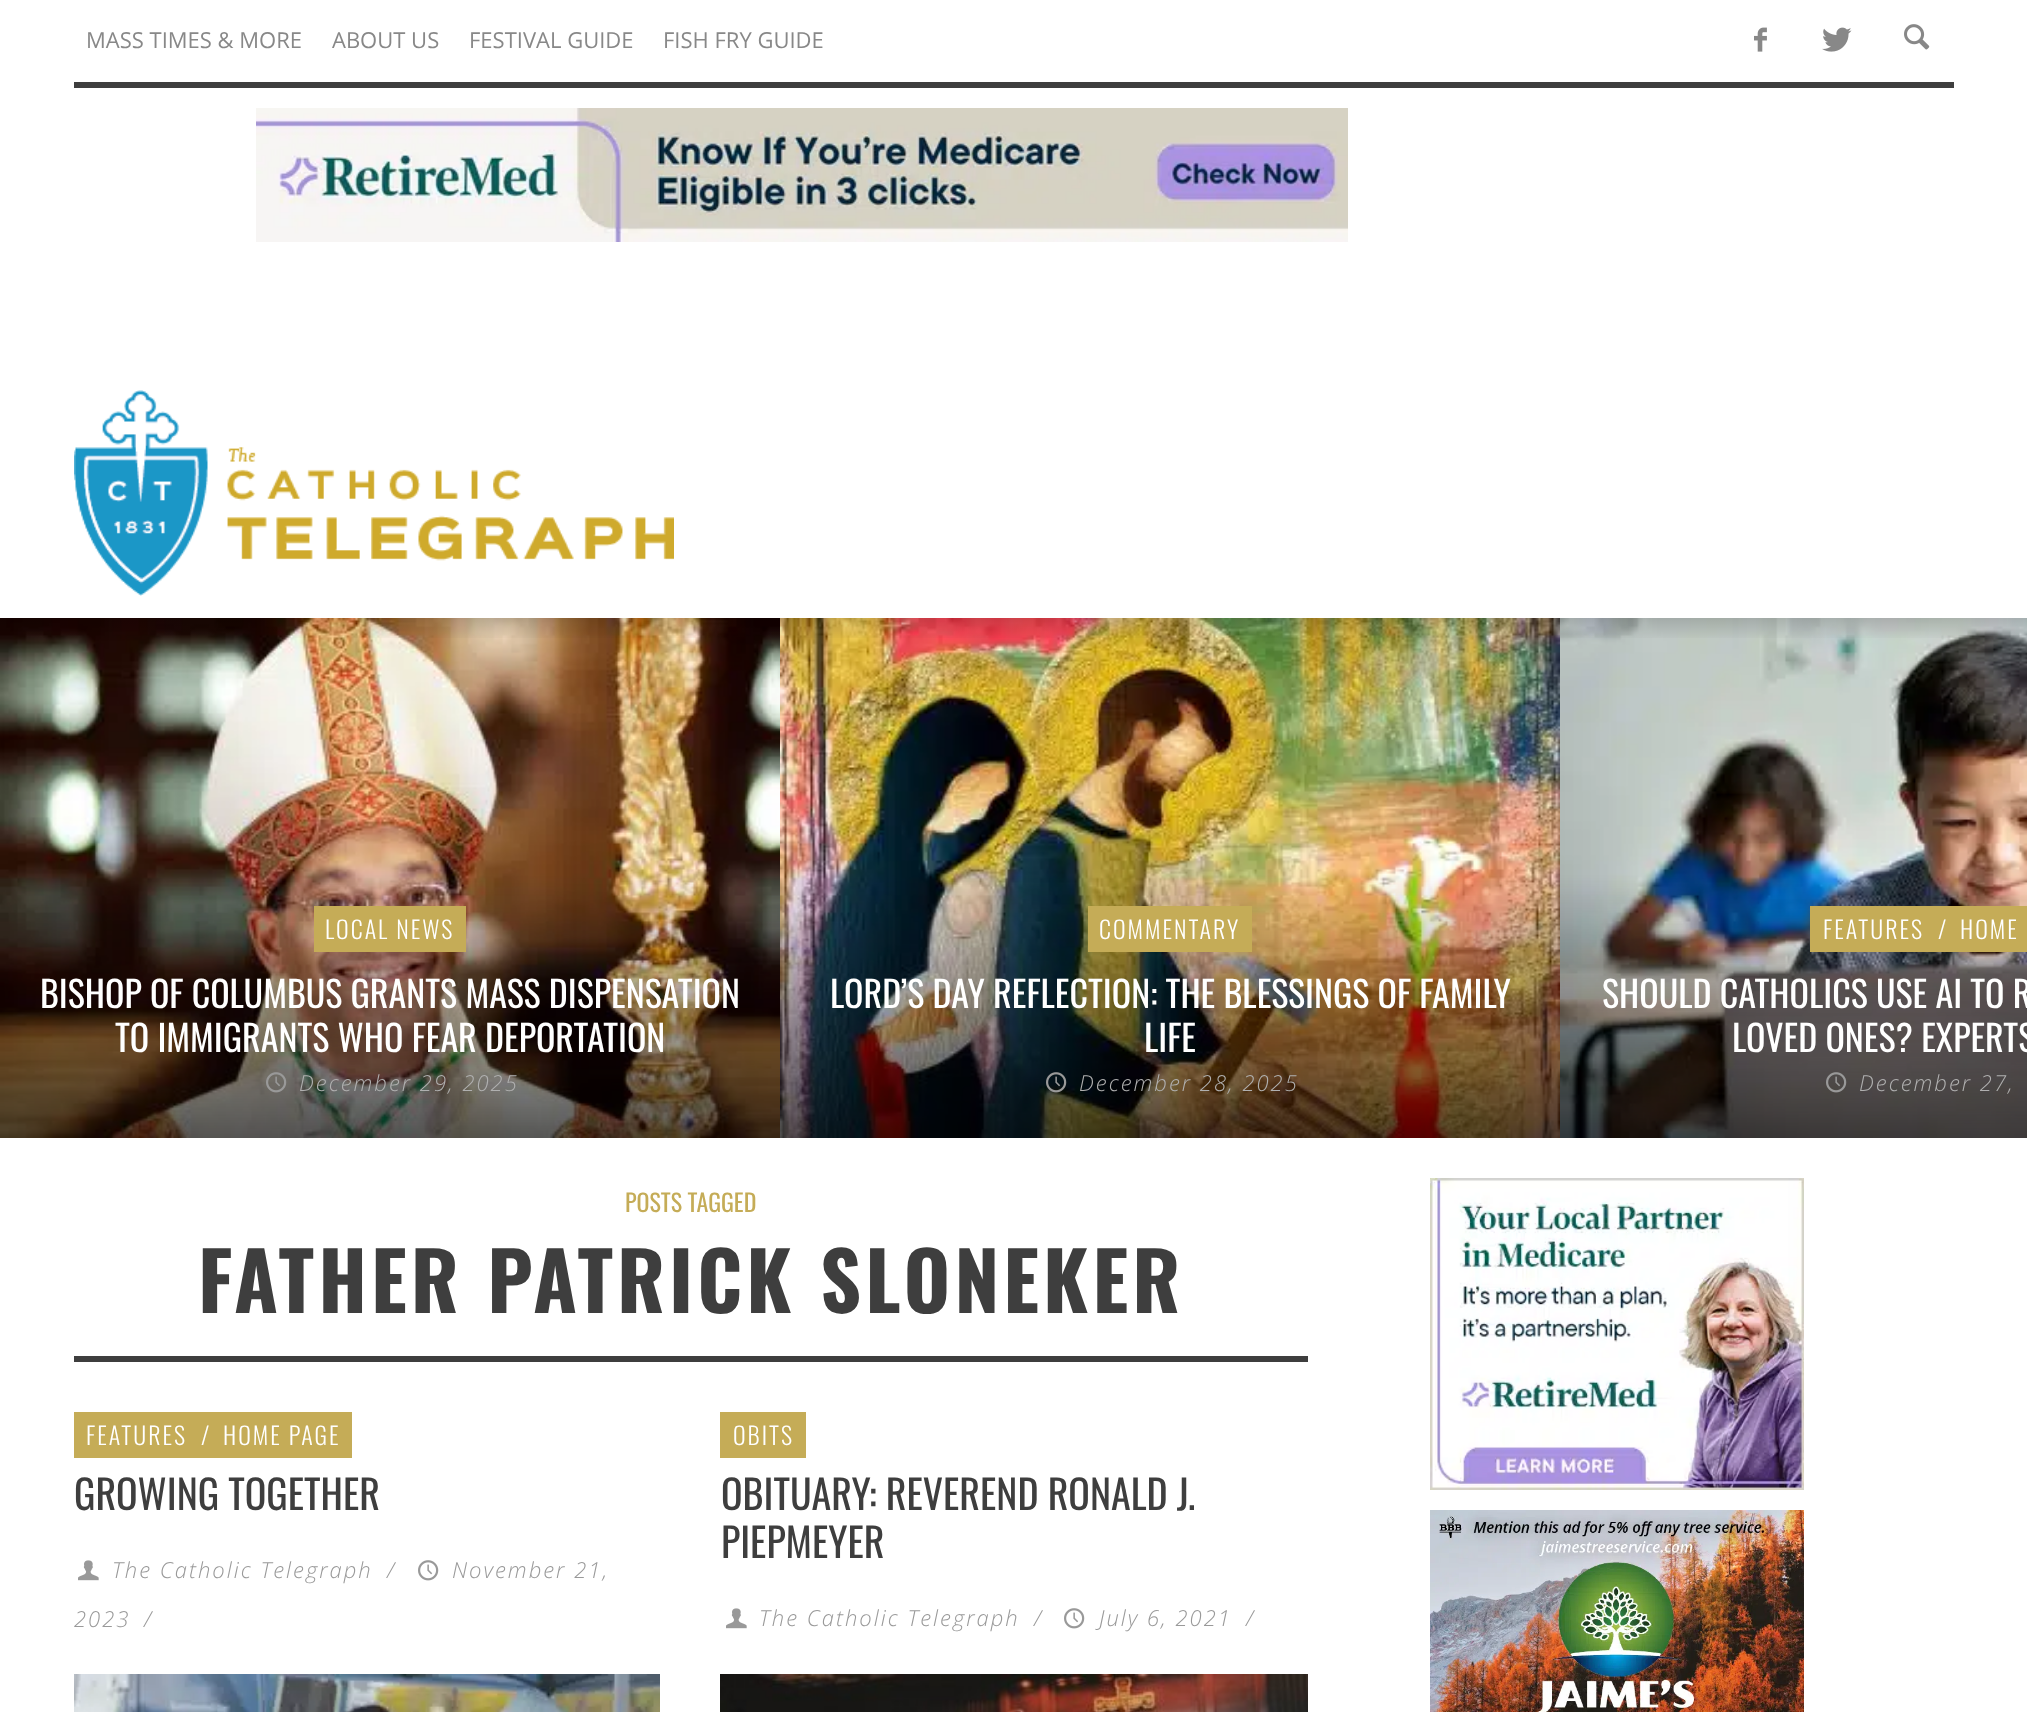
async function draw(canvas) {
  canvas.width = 2027
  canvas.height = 1712
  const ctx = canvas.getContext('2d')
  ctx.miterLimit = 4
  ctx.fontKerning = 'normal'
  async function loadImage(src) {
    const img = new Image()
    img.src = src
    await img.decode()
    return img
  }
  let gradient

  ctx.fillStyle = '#fff'
  ctx.fillRect(0, 0, 2027, 1712)
  ctx.fillStyle = '#3e3e3e'
  ctx.fillRect(74, 82, 1880, 6)
  ctx.font = '22px Open Sans'
  ctx.fillStyle = '#888'
  ctx.fillText('MASS TIMES & MORE', 86, 48)
  ctx.fillText('ABOUT US', 332, 48)
  ctx.fillText('FESTIVAL GUIDE', 469, 48)
  ctx.fillText('FISH FRY GUIDE', 663, 48)
  ctx.drawImage(await loadImage('image0.png'), 1754, 27, 13, 25)
  ctx.drawImage(await loadImage('image1.png'), 1822, 27, 30, 25)
  ctx.drawImage(await loadImage('image2.png'), 1904, 24, 26, 26)
  ctx.drawImage(await loadImage('image3.png'), 256, 108, 1092, 134)
  ctx.drawImage(await loadImage('image4.png'), 74, 390, 600, 206)
  ctx.drawImage(await loadImage('image5.png'), 0, 618, 780, 520)
  ctx.drawImage(await loadImage('image7.png'), 780, 618, 780, 520)
  ctx.drawImage(await loadImage('image9.png'), 1560, 618, 467, 520)
  gradient = ctx.createLinearGradient(1014, 618, 1014, 658)
  gradient.addColorStop(0, '#00000026')
  gradient.addColorStop(0.5, '#00000005')
  gradient.addColorStop(0.8, '#00000000')
  ctx.fillStyle = gradient
  ctx.fillRect(0, 618, 2027, 20)
  ctx.fillStyle = '#c5ac57'
  ctx.fillRect(314, 906, 152, 46)
  ctx.letterSpacing = '2px'
  ctx.font = '300 24px Oswald'
  ctx.fillStyle = '#fff'
  ctx.fillText('LOCAL NEWS', 325, 939)
  ctx.letterSpacing = '0px'
  ctx.font = '36px Oswald'
  ctx.fillText('BISHOP OF COLUMBUS GRANTS MASS DISPENSATION', 40, 1008)
  ctx.fillText('TO IMMIGRANTS WHO FEAR DEPORTATION', 115, 1052)
  ctx.drawImage(await loadImage('image6.png'), 266, 1072, 21, 21)
  ctx.letterSpacing = '2px'
  ctx.font = 'italic 300 22px Open Sans'
  ctx.fillStyle = '#b0b0b0'
  ctx.fillText('December 29, 2025', 299, 1091)
  ctx.fillStyle = '#c5ac57'
  ctx.fillRect(1088, 906, 164, 46)
  ctx.font = '300 24px Oswald'
  ctx.fillStyle = '#fff'
  ctx.fillText('COMMENTARY', 1099, 939)
  ctx.letterSpacing = '0px'
  ctx.font = '36px Oswald'
  ctx.fillText('LORD’S DAY REFLECTION: THE BLESSINGS OF FAMILY', 830, 1008)
  ctx.fillText('LIFE', 1144, 1052)
  ctx.drawImage(await loadImage('image8.png'), 1046, 1072, 21, 21)
  ctx.letterSpacing = '2px'
  ctx.font = 'italic 300 22px Open Sans'
  ctx.fillStyle = '#b0b0b0'
  ctx.fillText('December 28, 2025', 1079, 1091)
  ctx.fillStyle = '#c5ac57'
  ctx.fillRect(1810, 906, 217, 46)
  ctx.font = '300 24px Oswald'
  ctx.fillStyle = '#fff'
  ctx.fillText('FEATURES', 1823, 939)
  ctx.letterSpacing = '0px'
  ctx.fillText('/', 1938, 939)
  ctx.letterSpacing = '2px'
  ctx.fillText('HOME', 1960, 939)
  ctx.letterSpacing = '0px'
  ctx.font = '36px Oswald'
  ctx.fillText('SHOULD CATHOLICS USE AI TO R', 1602, 1008)
  ctx.fillText('LOVED ONES? EXPERTS', 1732, 1052)
  ctx.drawImage(await loadImage('image10.png'), 1826, 1072, 21, 21)
  ctx.letterSpacing = '2px'
  ctx.font = 'italic 300 22px Open Sans'
  ctx.fillStyle = '#b0b0b0'
  ctx.fillText('December 27,', 1859, 1091)
  ctx.fillStyle = '#3e3e3e'
  ctx.fillRect(74, 1356, 1234, 6)
  ctx.letterSpacing = '0px'
  ctx.font = '24px Oswald'
  ctx.fillStyle = '#c5ac57'
  ctx.fillText('POSTS TAGGED', 625, 1212)
  ctx.letterSpacing = '4px'
  ctx.font = 'bold 80px Oswald'
  ctx.fillStyle = '#3e3e3e'
  ctx.fillText('FATHER PATRICK SLONEKER', 198, 1313)
  ctx.fillStyle = '#c5ac57'
  ctx.fillRect(74, 1412, 278, 46)
  ctx.letterSpacing = '2px'
  ctx.font = '300 24px Oswald'
  ctx.fillStyle = '#fff'
  ctx.fillText('FEATURES', 86, 1445)
  ctx.letterSpacing = '0px'
  ctx.fillText('/', 201, 1445)
  ctx.letterSpacing = '2px'
  ctx.fillText('HOME PAGE', 223, 1445)
  ctx.letterSpacing = '0px'
  ctx.font = '40px Oswald'
  ctx.fillStyle = '#3e3e3e'
  ctx.fillText('GROWING TOGETHER', 74, 1510)
  ctx.drawImage(await loadImage('image11.png'), 78, 1560, 21, 21)
  ctx.letterSpacing = '2px'
  ctx.font = 'italic 300 22px Open Sans'
  ctx.fillStyle = '#999'
  ctx.fillText('The Catholic Telegraph', 112, 1578)
  ctx.fillText('/', 387, 1578)
  ctx.drawImage(await loadImage('image12.png'), 418, 1560, 21, 21)
  ctx.fillText('November 21,', 452, 1578)
  ctx.fillText('2023', 74, 1627)
  ctx.fillText('/', 144, 1627)
  ctx.drawImage(await loadImage('image13.png'), 74, 1674, 586, 38)
  ctx.fillStyle = '#c5ac57'
  ctx.fillRect(720, 1412, 86, 46)
  ctx.font = '300 24px Oswald'
  ctx.fillStyle = '#fff'
  ctx.fillText('OBITS', 733, 1445)
  ctx.letterSpacing = '0px'
  ctx.font = '40px Oswald'
  ctx.fillStyle = '#3e3e3e'
  ctx.fillText('OBITUARY: REVEREND RONALD J.', 721, 1510)
  ctx.fillText('PIEPMEYER', 721, 1558)
  ctx.drawImage(await loadImage('image11.png'), 726, 1608, 21, 21)
  ctx.letterSpacing = '2px'
  ctx.font = 'italic 300 22px Open Sans'
  ctx.fillStyle = '#999'
  ctx.fillText('The Catholic Telegraph', 759, 1626)
  ctx.fillText('/', 1034, 1626)
  ctx.drawImage(await loadImage('image12.png'), 1064, 1608, 21, 21)
  ctx.fillText('July 6, 2021', 1099, 1626)
  ctx.fillText('/', 1246, 1626)
  ctx.drawImage(await loadImage('image14.png'), 720, 1674, 588, 38)
  ctx.drawImage(await loadImage('image15.png'), 1430, 1178, 374, 312)
  ctx.drawImage(await loadImage('image16.png'), 1430, 1510, 374, 202)
}

draw(document.querySelector('canvas'))
